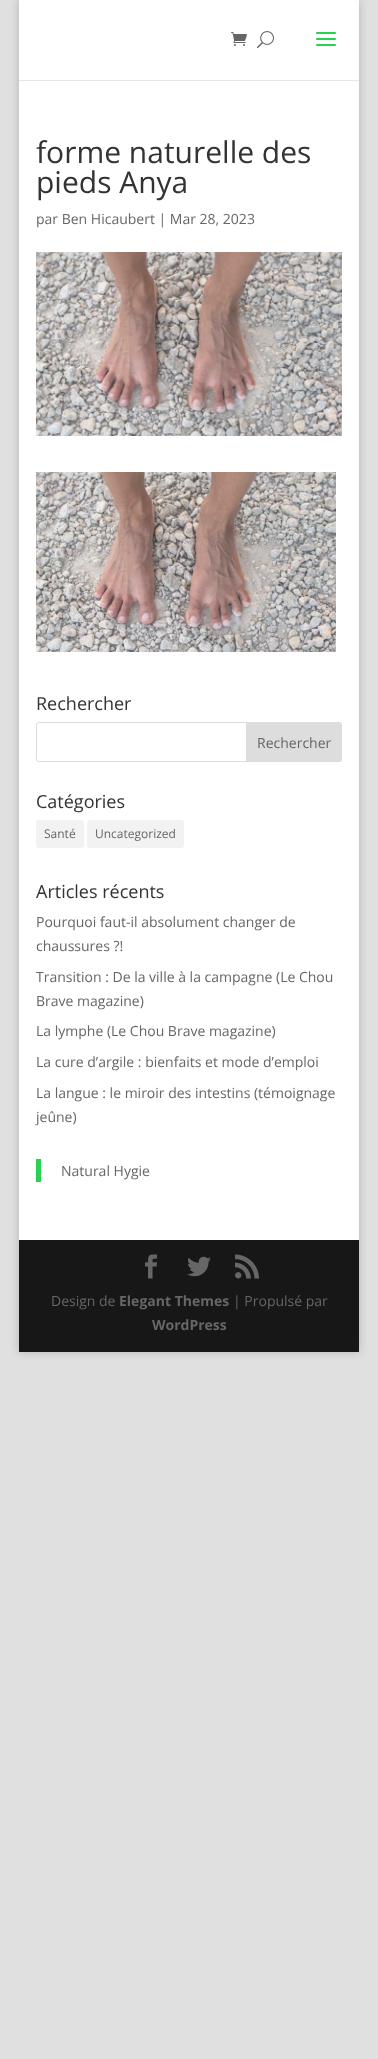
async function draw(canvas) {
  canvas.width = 378
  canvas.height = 2059
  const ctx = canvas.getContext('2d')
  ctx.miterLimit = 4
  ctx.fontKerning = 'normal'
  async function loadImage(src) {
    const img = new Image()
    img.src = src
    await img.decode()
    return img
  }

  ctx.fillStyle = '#e0e0e0'
  ctx.fillRect(0, 0, 378, 2059)
  ctx.fillStyle = '#00000033'
  ctx.filter = 'blur(5px)'
  ctx.beginPath()
  ctx.rect(19, 0, 340, 1352)
  ctx.fill()
  ctx.filter = 'none'
  ctx.fillStyle = '#e6e6e6'
  ctx.fillRect(19, 80, 340, 1)
  ctx.fillStyle = '#fff'
  ctx.fillRect(19, 0, 340, 80)
  ctx.drawImage(await loadImage('image0.png'), 231, 32, 16, 14)
  ctx.drawImage(await loadImage('image1.png'), 257, 31, 17, 18)
  ctx.drawImage(await loadImage('image2.png'), 316, 32, 20, 14)
  ctx.fillRect(19, 81, 340, 1159)
  ctx.font = '30px Open Sans'
  ctx.fillStyle = '#333'
  ctx.fillText('forme naturelle des', 36, 163)
  ctx.fillText('pieds Anya', 36, 193)
  ctx.font = '14px Open Sans'
  ctx.fillStyle = '#666'
  ctx.fillText('par Ben Hicaubert | Mar 28, 2023', 36, 224)
  ctx.drawImage(await loadImage('image3.png'), 36, 252, 306, 184)
  ctx.drawImage(await loadImage('image4.png'), 36, 472, 300, 180)
  ctx.font = '18px Open Sans'
  ctx.fillStyle = '#333'
  ctx.fillText('Rechercher', 36, 710)
  ctx.beginPath()
  ctx.roundRect(36.5, 722.5, 305, 39, 2.5)
  ctx.strokeStyle = '#ddd'
  ctx.stroke()
  ctx.fillStyle = '#ddd'
  ctx.beginPath()
  ctx.roundRect(246.5, 722.5, 95, 39, [0, 2.5, 2.5, 0])
  ctx.fill()
  ctx.stroke()
  ctx.font = '14px Open Sans'
  ctx.fillStyle = '#666'
  ctx.fillText('Rechercher', 257, 748)
  ctx.font = '18px Open Sans'
  ctx.fillStyle = '#333'
  ctx.fillText('Catégories', 36, 808)
  ctx.fillStyle = '#f2f2f2'
  ctx.beginPath()
  ctx.roundRect(36, 820, 48, 28, 3)
  ctx.fill()
  ctx.font = '12px Open Sans'
  ctx.fillStyle = '#666'
  ctx.fillText('Santé', 44, 838)
  ctx.fillStyle = '#f2f2f2'
  ctx.beginPath()
  ctx.roundRect(87, 820, 97, 28, 3)
  ctx.fill()
  ctx.fillStyle = '#666'
  ctx.fillText('Uncategorized', 95, 838)
  ctx.font = '18px Open Sans'
  ctx.fillStyle = '#333'
  ctx.fillText('Articles récents', 36, 898)
  ctx.font = '14px Open Sans'
  ctx.fillStyle = '#666'
  ctx.fillText('Pourquoi faut-il absolument changer de', 36, 927)
  ctx.fillText('chaussures ?!', 36, 951)
  ctx.fillText('Transition : De la ville à la campagne (Le Chou', 36, 982)
  ctx.fillText('Brave magazine)', 36, 1006)
  ctx.fillText('La lymphe (Le Chou Brave magazine)', 36, 1036)
  ctx.fillText('La cure d’argile : bienfaits et mode d’emploi', 36, 1067)
  ctx.fillText('La langue : le miroir des intestins (témoignage', 36, 1098)
  ctx.fillText('jeûne)', 36, 1122)
  ctx.fillStyle = '#27d152'
  ctx.fillRect(36, 1159, 5, 23)
  ctx.fillStyle = '#666'
  ctx.fillText('Natural Hygie', 61, 1176)
  ctx.fillStyle = '#171717'
  ctx.fillRect(19, 1240, 340, 112)
  ctx.drawImage(await loadImage('image5.png'), 145, 1254, 12, 25)
  ctx.drawImage(await loadImage('image6.png'), 187, 1256, 24, 21)
  ctx.drawImage(await loadImage('image7.png'), 235, 1254, 24, 25)
  ctx.fillStyle = '#666'
  ctx.fillText('Design de', 51, 1306)
  ctx.font = 'bold 14px Open Sans'
  ctx.fillText('Elegant Themes', 119, 1306)
  ctx.font = '14px Open Sans'
  ctx.fillText('| Propulsé par', 233, 1306)
  ctx.font = 'bold 14px Open Sans'
  ctx.fillText('WordPress', 152, 1330)
}

draw(document.querySelector('canvas'))
